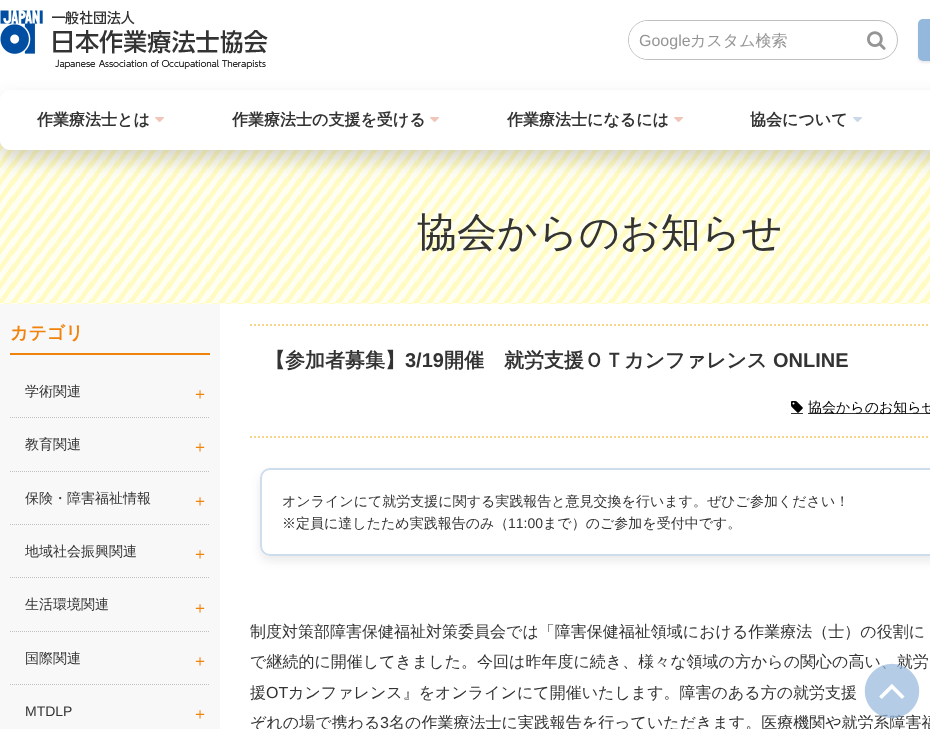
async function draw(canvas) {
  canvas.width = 930
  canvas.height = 729
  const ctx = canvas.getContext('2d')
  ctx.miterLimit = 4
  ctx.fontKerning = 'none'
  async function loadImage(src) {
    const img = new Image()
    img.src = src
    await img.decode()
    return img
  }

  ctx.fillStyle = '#fff'
  ctx.fillRect(0, 0, 930, 729)
  ctx.drawImage(await loadImage('image0.png'), 0, 10, 268, 60)
  ctx.beginPath()
  ctx.roundRect(628.5, 20.5, 269, 39, 19.5)
  ctx.strokeStyle = '#bfbfbf'
  ctx.stroke()
  ctx.beginPath()
  ctx.roundRect(629, 21, 233, 38, [19, 0, 0, 19])
  ctx.fill()
  ctx.font = '16px Liberation Sans'
  ctx.fillStyle = '#959595'
  ctx.fillText('Google', 639, 46)
  ctx.font = '500 16px WenQuanYi Zen Hei'
  ctx.fillText('カスタム検索', 690, 46)
  ctx.drawImage(await loadImage('image1.png'), 867, 31, 19, 19)
  ctx.fillStyle = '#3333331a'
  ctx.filter = 'blur(1px)'
  ctx.beginPath()
  ctx.roundRect(918, 21, 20, 42, 5)
  ctx.fill()
  ctx.filter = 'none'
  ctx.fillStyle = '#94b7dc'
  ctx.beginPath()
  ctx.roundRect(918, 19, 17, 42, 5)
  ctx.fill()
  ctx.drawImage(await loadImage('image4.png'), 0, 140, 930, 164)
  ctx.fillStyle = '#33333333'
  ctx.filter = 'blur(10px)'
  ctx.beginPath()
  ctx.roundRect(0, 100, 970, 60, 10)
  ctx.fill()
  ctx.filter = 'none'
  ctx.fillStyle = '#fff'
  ctx.beginPath()
  ctx.moveTo(10, 90)
  ctx.lineTo(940, 90)
  ctx.lineTo(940, 150)
  ctx.lineTo(10, 150)
  ctx.bezierCurveTo(4.5, 150, 0, 145.5, 0, 140)
  ctx.lineTo(0, 100)
  ctx.bezierCurveTo(0, 94.5, 4.5, 90, 10, 90)
  ctx.closePath()
  ctx.fill()
  ctx.font = 'bold 16px WenQuanYi Zen Hei'
  ctx.fillStyle = '#333'
  ctx.fillText('作業療法士とは', 37, 125)
  ctx.drawImage(await loadImage('image2.png'), 155, 117, 9, 5)
  ctx.fillText('作業療法士の支援を受ける', 232, 125)
  ctx.drawImage(await loadImage('image2.png'), 430, 117, 9, 5)
  ctx.fillText('作業療法士になるには', 507, 125)
  ctx.drawImage(await loadImage('image2.png'), 674, 117, 9, 5)
  ctx.fillText('協会について', 750, 125)
  ctx.drawImage(await loadImage('image3.png'), 853, 117, 9, 5)
  ctx.font = '500 40px WenQuanYi Zen Hei'
  ctx.fillText('協会からのお知らせ', 417, 246)
  ctx.fillStyle = '#f8f8f8'
  ctx.fillRect(0, 304, 220, 425)
  ctx.fillStyle = '#f0830c'
  ctx.fillRect(10, 353, 200, 2)
  ctx.font = 'bold 18px WenQuanYi Zen Hei'
  ctx.fillText('カテゴリ', 10, 339)
  ctx.beginPath()
  ctx.moveTo(10, 417.5)
  ctx.lineTo(210, 417.5)
  ctx.setLineDash([1, 1])
  ctx.stroke()
  ctx.font = '500 14px WenQuanYi Zen Hei'
  ctx.fillStyle = '#333'
  ctx.fillText('学術関連', 25, 396)
  ctx.font = '500 16px WenQuanYi Zen Hei'
  ctx.fillStyle = '#f0830c'
  ctx.fillText('＋', 192, 399)
  ctx.beginPath()
  ctx.moveTo(10, 471.5)
  ctx.lineTo(210, 471.5)
  ctx.stroke()
  ctx.font = '500 14px WenQuanYi Zen Hei'
  ctx.fillStyle = '#333'
  ctx.fillText('教育関連', 25, 449)
  ctx.font = '500 16px WenQuanYi Zen Hei'
  ctx.fillStyle = '#f0830c'
  ctx.fillText('＋', 192, 452)
  ctx.beginPath()
  ctx.moveTo(10, 524.5)
  ctx.lineTo(210, 524.5)
  ctx.stroke()
  ctx.font = '500 14px WenQuanYi Zen Hei'
  ctx.fillStyle = '#333'
  ctx.fillText('保険・障害福祉情報', 25, 503)
  ctx.font = '500 16px WenQuanYi Zen Hei'
  ctx.fillStyle = '#f0830c'
  ctx.fillText('＋', 192, 506)
  ctx.beginPath()
  ctx.moveTo(10, 577.5)
  ctx.lineTo(210, 577.5)
  ctx.stroke()
  ctx.font = '500 14px WenQuanYi Zen Hei'
  ctx.fillStyle = '#333'
  ctx.fillText('地域社会振興関連', 25, 556)
  ctx.font = '500 16px WenQuanYi Zen Hei'
  ctx.fillStyle = '#f0830c'
  ctx.fillText('＋', 192, 559)
  ctx.beginPath()
  ctx.moveTo(10, 631.5)
  ctx.lineTo(210, 631.5)
  ctx.stroke()
  ctx.font = '500 14px WenQuanYi Zen Hei'
  ctx.fillStyle = '#333'
  ctx.fillText('生活環境関連', 25, 609)
  ctx.font = '500 16px WenQuanYi Zen Hei'
  ctx.fillStyle = '#f0830c'
  ctx.fillText('＋', 192, 613)
  ctx.beginPath()
  ctx.moveTo(10, 684.5)
  ctx.lineTo(210, 684.5)
  ctx.stroke()
  ctx.font = '500 14px WenQuanYi Zen Hei'
  ctx.fillStyle = '#333'
  ctx.fillText('国際関連', 25, 663)
  ctx.font = '500 16px WenQuanYi Zen Hei'
  ctx.fillStyle = '#f0830c'
  ctx.fillText('＋', 192, 666)
  ctx.font = '14px Liberation Sans'
  ctx.fillStyle = '#333'
  ctx.fillText('MTDLP', 25, 716)
  ctx.font = '500 16px WenQuanYi Zen Hei'
  ctx.fillStyle = '#f0830c'
  ctx.fillText('＋', 192, 719)
  ctx.beginPath()
  ctx.moveTo(250, 325)
  ctx.lineTo(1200, 325)
  ctx.strokeStyle = '#f9d58b'
  ctx.lineWidth = 2
  ctx.setLineDash([2, 2])
  ctx.stroke()
  ctx.beginPath()
  ctx.moveTo(250, 437)
  ctx.lineTo(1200, 437)
  ctx.stroke()
  ctx.font = 'bold 20px WenQuanYi Zen Hei'
  ctx.fillStyle = '#333'
  ctx.fillText('【参加者募集】', 265, 367)
  ctx.font = 'bold 20px Liberation Sans'
  ctx.fillText('3/19', 405, 367)
  ctx.font = 'bold 20px WenQuanYi Zen Hei'
  ctx.fillText('開催　就労支援ＯＴカンファレンス', 444, 367)
  ctx.font = 'bold 20px Liberation Sans'
  ctx.fillText('ONLINE', 773, 367)
  ctx.drawImage(await loadImage('image5.png'), 791, 401, 12, 12)
  ctx.fillRect(808, 413, 122, 1)
  ctx.font = '500 14px WenQuanYi Zen Hei'
  ctx.fillStyle = '#000'
  ctx.fillText('協会からのお知らせ', 808, 412)
  ctx.fillStyle = '#333'
  ctx.fillRect(791, 413, 12, 1)
  ctx.save()
  ctx.beginPath()
  ctx.moveTo(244, 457)
  ctx.lineTo(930, 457)
  ctx.lineTo(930, 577)
  ctx.lineTo(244, 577)
  ctx.closePath()
  ctx.moveTo(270, 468)
  ctx.lineTo(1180, 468)
  ctx.bezierCurveTo(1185.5, 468, 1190, 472.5, 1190, 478)
  ctx.lineTo(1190, 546)
  ctx.bezierCurveTo(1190, 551.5, 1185.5, 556, 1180, 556)
  ctx.lineTo(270, 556)
  ctx.bezierCurveTo(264.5, 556, 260, 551.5, 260, 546)
  ctx.lineTo(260, 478)
  ctx.bezierCurveTo(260, 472.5, 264.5, 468, 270, 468)
  ctx.closePath()
  ctx.clip('evenodd')
  ctx.fillStyle = '#3333331a'
  ctx.filter = 'blur(5px)'
  ctx.beginPath()
  ctx.roundRect(260, 473, 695, 88, 10)
  ctx.fill()
  ctx.filter = 'none'
  ctx.restore()
  ctx.beginPath()
  ctx.roundRect(261, 469, 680, 86, 9)
  ctx.strokeStyle = '#ceddec'
  ctx.setLineDash([])
  ctx.stroke()
  ctx.fillText('オンラインにて就労支援に関する実践報告と意見交換を行います。ぜひご参加ください！', 282, 506)
  ctx.fillText('※定員に達したため実践報告のみ（', 282, 528)
  ctx.font = '14px Liberation Sans'
  ctx.fillText('11:00', 508, 528)
  ctx.font = '500 14px WenQuanYi Zen Hei'
  ctx.fillText('まで）のご参加を受付中です。', 543, 528)
  ctx.font = '500 16px WenQuanYi Zen Hei'
  ctx.fillText('制度対策部障害保健福祉対策委員会では「障害保健福祉領域における作業療法（士）の役割に', 250, 637)
  ctx.fillText('で継続的に開催してきました。今回は昨年度に続き、様々な領域の方からの関心の高い、就労', 250, 667)
  ctx.fillText('援', 250, 698)
  ctx.font = '16px Liberation Sans'
  ctx.fillText('OT', 266, 698)
  ctx.font = '500 16px WenQuanYi Zen Hei'
  ctx.fillText('カンファレンス』をオンラインにて開催いたします。障害のある方の就労支援', 288, 698)
  ctx.fillText('ぞれの場で携わる', 250, 728)
  ctx.font = '16px Liberation Sans'
  ctx.fillText('3', 380, 728)
  ctx.font = '500 16px WenQuanYi Zen Hei'
  ctx.fillText('名の作業療法士に実践報告を行っていただきます。医療機関や就労系障害福', 389, 728)
  ctx.drawImage(await loadImage('image6.png'), 864, 663, 56, 56)
}

draw(document.querySelector('canvas'))
